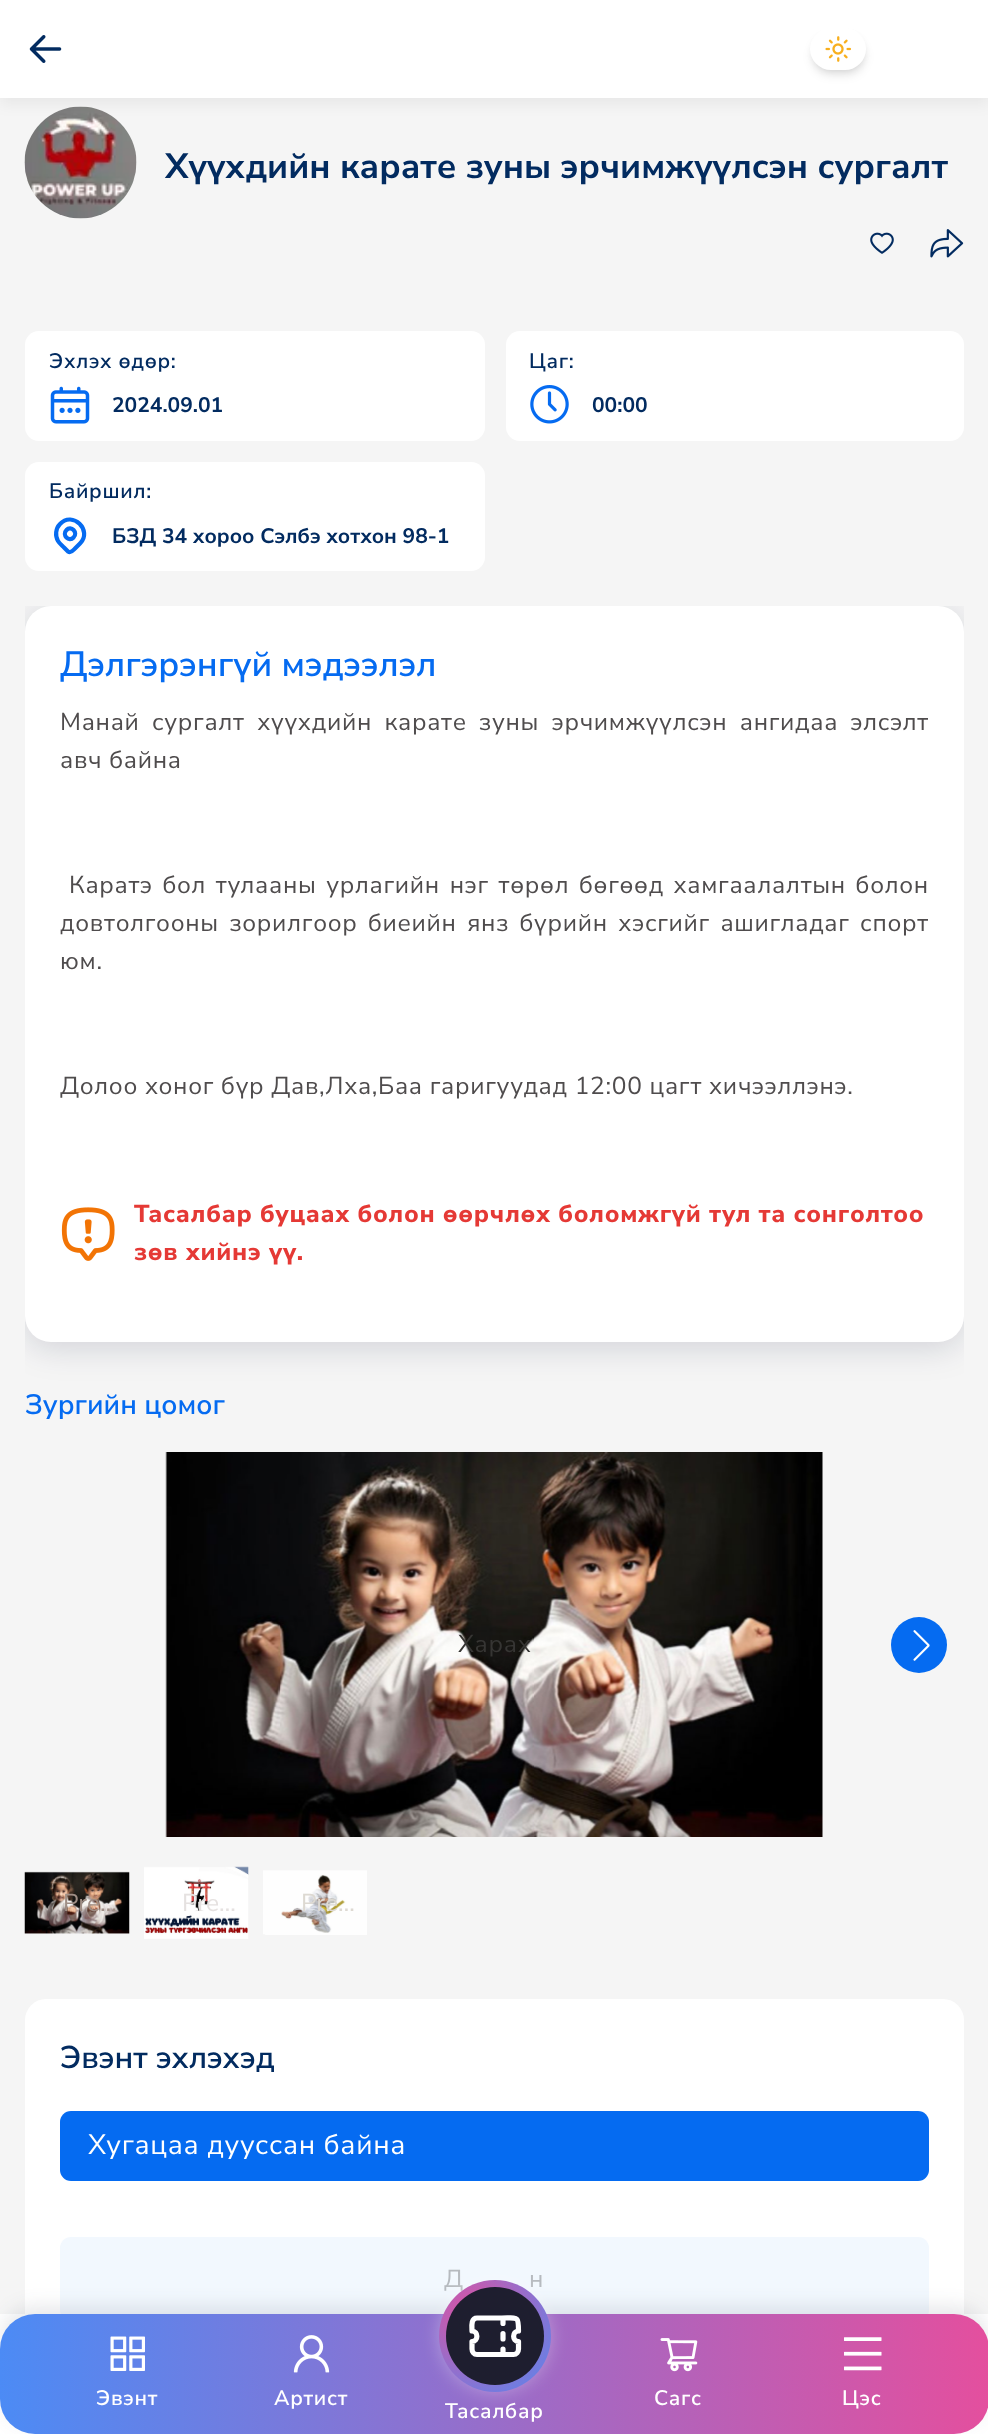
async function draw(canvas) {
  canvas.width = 988
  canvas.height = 2434
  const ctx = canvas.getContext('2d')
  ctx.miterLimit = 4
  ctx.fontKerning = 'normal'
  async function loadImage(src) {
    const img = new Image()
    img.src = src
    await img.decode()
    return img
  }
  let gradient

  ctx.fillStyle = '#f5f5f5'
  ctx.fillRect(0, 0, 988, 2434)
  ctx.drawImage(await loadImage('image2.png'), 24, 106, 113, 113)
  ctx.fillStyle = '#0000000d'
  ctx.filter = 'blur(7px)'
  ctx.beginPath()
  ctx.rect(0, 7, 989, 98)
  ctx.fill()
  ctx.filter = 'none'
  ctx.fillStyle = '#fff'
  ctx.fillRect(0, 0, 988, 98)
  ctx.drawImage(await loadImage('image0.png'), 29, 35, 33, 28)
  ctx.fillStyle = '#0000001a'
  ctx.filter = 'blur(3.5px)'
  ctx.beginPath()
  ctx.roundRect(814, 35, 49, 35, 17.5)
  ctx.fill()
  ctx.filter = 'none'
  ctx.filter = 'blur(5px)'
  ctx.beginPath()
  ctx.roundRect(812, 37, 53, 38, 19)
  ctx.fill()
  ctx.filter = 'none'
  ctx.fillStyle = '#fff'
  ctx.beginPath()
  ctx.roundRect(810, 28, 56, 42, 21)
  ctx.fill()
  ctx.drawImage(await loadImage('image1.png'), 825, 36, 26, 26)
  ctx.font = 'bold 35px Nunito Sans'
  ctx.fillStyle = '#022b60'
  ctx.fillText('Хүүхдийн карате зуны эрчимжүүлсэн сургалт', 165, 178)
  ctx.drawImage(await loadImage('image3.png'), 870, 232, 24, 22)
  ctx.drawImage(await loadImage('image4.png'), 930, 229, 34, 29)
  ctx.fillStyle = '#fff'
  ctx.beginPath()
  ctx.roundRect(25, 331, 460, 110, 14)
  ctx.fill()
  ctx.letterSpacing = '0.7px'
  ctx.font = '600 21px Nunito Sans'
  ctx.fillStyle = '#022b60'
  ctx.fillText('Эхлэх өдөр:', 49, 368)
  ctx.drawImage(await loadImage('image5.png'), 50, 386, 40, 38)
  ctx.letterSpacing = '0px'
  ctx.font = 'bold 21px Nunito Sans'
  ctx.fillText('2024.09.01', 112, 412)
  ctx.fillStyle = '#fff'
  ctx.beginPath()
  ctx.roundRect(506, 331, 458, 110, 14)
  ctx.fill()
  ctx.letterSpacing = '0.7px'
  ctx.font = '600 21px Nunito Sans'
  ctx.fillStyle = '#022b60'
  ctx.fillText('Цаг:', 529, 368)
  ctx.drawImage(await loadImage('image6.png'), 530, 385, 39, 39)
  ctx.letterSpacing = '0px'
  ctx.font = 'bold 21px Nunito Sans'
  ctx.fillText('00:00', 592, 412)
  ctx.fillStyle = '#fff'
  ctx.beginPath()
  ctx.roundRect(25, 462, 460, 109, 14)
  ctx.fill()
  ctx.letterSpacing = '0.7px'
  ctx.font = '600 21px Nunito Sans'
  ctx.fillStyle = '#022b60'
  ctx.fillText('Байршил:', 49, 498)
  ctx.beginPath()
  ctx.moveTo(80, 543.5)
  ctx.lineTo(75, 548.5)
  ctx.bezierCurveTo(73, 550.5, 71, 553.5, 68, 551.5)
  ctx.lineTo(64, 547.5)
  ctx.bezierCurveTo(62, 545.5, 59.5, 543.5, 58, 541)
  ctx.bezierCurveTo(55, 536, 55.5, 528.5, 60, 524)
  ctx.bezierCurveTo(72.5, 510.5, 93, 530.5, 80, 543.5)
  ctx.closePath()
  ctx.moveTo(73.5, 537.5)
  ctx.bezierCurveTo(78.5, 532.5, 71, 525, 66.5, 530)
  ctx.bezierCurveTo(61.5, 535, 69, 542.5, 73.5, 537.5)
  ctx.closePath()
  ctx.strokeStyle = '#056bf1'
  ctx.lineWidth = 4.2
  ctx.lineCap = 'round'
  ctx.lineJoin = 'round'
  ctx.stroke()
  ctx.letterSpacing = '0px'
  ctx.font = 'bold 21px Nunito Sans'
  ctx.fillText('БЗД 34 хороо Сэлбэ хотхон 98-1', 112, 543)
  ctx.save()
  ctx.beginPath()
  ctx.rect(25, 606, 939, 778)
  ctx.clip()
  ctx.fillStyle = '#05103726'
  ctx.filter = 'blur(16.5px)'
  ctx.beginPath()
  ctx.roundRect(25, 611, 939, 737, 26)
  ctx.fill()
  ctx.filter = 'none'
  ctx.restore()
  ctx.fillStyle = '#fff'
  ctx.beginPath()
  ctx.roundRect(25, 606, 939, 736, 26)
  ctx.fill()
  ctx.font = '600 35px Nunito Sans'
  ctx.fillStyle = '#056bf1'
  ctx.fillText('Дэлгэрэнгүй мэдээлэл', 60, 676)
  ctx.letterSpacing = '0.7px'
  ctx.wordSpacing = '5.5px'
  ctx.font = '24.5px Nunito Sans'
  ctx.fillStyle = '#4f4c4d'
  ctx.fillText('Манай сургалт хүүхдийн карате зуны эрчимжүүлсэн ангидаа элсэлт', 60, 730)
  ctx.wordSpacing = '0px'
  ctx.fillText('авч байна', 60, 768)
  ctx.wordSpacing = '2.75px'
  ctx.fillText('Каратэ бол тулааны урлагийн нэг төрөл бөгөөд хамгаалалтын болон', 69, 893)
  ctx.wordSpacing = '3.5px'
  ctx.fillText('довтолгооны зорилгоор биеийн янз бүрийн хэсгийг ашигладаг спорт', 60, 931)
  ctx.wordSpacing = '0px'
  ctx.fillText('юм.', 60, 969)
  ctx.fillText('Долоо хоног бүр Дав,Лха,Баа гаригуудад 12:00 цагт хичээллэнэ.', 60, 1094)
  ctx.drawImage(await loadImage('image7.png'), 61, 1207, 54, 54)
  ctx.font = '800 24.5px Nunito Sans'
  ctx.fillStyle = '#e53935'
  ctx.fillText('Тасалбар буцаах болон өөрчлөх боломжгүй тул та сонголтоо', 134, 1222)
  ctx.fillText('зөв хийнэ үү.', 134, 1260)
  ctx.letterSpacing = '0px'
  ctx.font = '600 28px Nunito Sans'
  ctx.fillStyle = '#056bf1'
  ctx.fillText('Зургийн цомог', 25, 1414)
  ctx.drawImage(await loadImage('image8.png'), 165, 1452, 658, 385)
  ctx.letterSpacing = '0.7px'
  ctx.font = '24.5px Nunito Sans'
  ctx.fillStyle = '#363533'
  ctx.fillText('Харах', 458, 1652)
  ctx.fillStyle = '#056bf1'
  ctx.beginPath()
  ctx.arc(919, 1645, 28, 0, 2 * Math.PI)
  ctx.fill()
  ctx.drawImage(await loadImage('image9.png'), 913, 1630, 17, 31)
  ctx.drawImage(await loadImage('image10.png'), 24, 1871, 106, 63)
  ctx.letterSpacing = '0px'
  ctx.fillStyle = '#9f8e85'
  ctx.fillText('Pre…', 63, 1911)
  ctx.drawImage(await loadImage('image11.png'), 144, 1866, 105, 73)
  ctx.fillStyle = '#e5e1e0'
  ctx.fillText('Pre…', 182, 1911)
  ctx.drawImage(await loadImage('image12.png'), 263, 1870, 104, 65)
  ctx.fillStyle = '#ddd9d2'
  ctx.fillText('Pre…', 301, 1911)
  ctx.fillStyle = '#fff'
  ctx.beginPath()
  ctx.roundRect(25, 1999, 939, 385, 21)
  ctx.fill()
  ctx.font = '600 31.5px Nunito Sans'
  ctx.fillStyle = '#022b60'
  ctx.fillText('Эвэнт эхлэхэд', 60, 2068)
  ctx.fillStyle = '#056bf1'
  ctx.beginPath()
  ctx.roundRect(60, 2111, 869, 70, 11)
  ctx.fill()
  ctx.letterSpacing = '0.7px'
  ctx.font = '28px Nunito Sans'
  ctx.fillStyle = '#fff'
  ctx.fillText('Хугацаа дууссан байна', 88, 2154)
  ctx.fillStyle = '#f2f8fe'
  ctx.beginPath()
  ctx.roundRect(60, 2237, 869, 84, 11)
  ctx.fill()
  ctx.font = '24.5px Nunito Sans'
  ctx.fillStyle = '#b6babf'
  ctx.fillText('Д', 444, 2287)
  ctx.fillText('н', 529, 2287)
  ctx.fillStyle = '#fff'
  ctx.fillRect(0, 2314, 988, 120)
  ctx.fillStyle = '#2c31491a'
  ctx.filter = 'blur(9px)'
  ctx.beginPath()
  ctx.roundRect(0, 2305, 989, 121, 35)
  ctx.fill()
  ctx.filter = 'none'
  gradient = ctx.createLinearGradient(0, 2374, 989, 2374)
  gradient.addColorStop(0, '#4c8bf5')
  gradient.addColorStop(1, '#e44f9e')
  ctx.fillStyle = gradient
  ctx.beginPath()
  ctx.roundRect(0, 2314, 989, 120, 35)
  ctx.fill()
  ctx.drawImage(await loadImage('image13.png'), 110, 2336, 35, 35)
  ctx.font = '600 21px Nunito Sans'
  ctx.fillStyle = '#fff'
  ctx.fillText('Эвэнт', 96, 2405)
  ctx.drawImage(await loadImage('image14.png'), 293, 2335, 37, 38)
  ctx.fillText('Артист', 274, 2405)
  ctx.drawImage(await loadImage('image15.png'), 660, 2338, 38, 34)
  ctx.fillText('Сагс', 654, 2405)
  ctx.drawImage(await loadImage('image16.png'), 844, 2337, 38, 34)
  ctx.fillText('Цэс', 842, 2405)
  ctx.fillStyle = '#ffffff4d'
  ctx.filter = 'blur(9px)'
  ctx.beginPath()
  ctx.roundRect(439, 2280, 112, 112, 56)
  ctx.fill()
  ctx.filter = 'none'
  gradient = ctx.createRadialGradient(473, 2314, 0, 473, 2314, 111)
  gradient.addColorStop(0, '#e44f9e')
  gradient.addColorStop(1, '#4c8bf5')
  ctx.fillStyle = gradient
  ctx.beginPath()
  ctx.arc(495, 2336, 56, 0, 2 * Math.PI)
  ctx.fill()
  ctx.fillStyle = '#1e1e2f'
  ctx.beginPath()
  ctx.arc(495, 2336, 49, 0, 2 * Math.PI)
  ctx.fill()
  ctx.beginPath()
  ctx.moveTo(503, 2318)
  ctx.lineTo(503, 2323.5)
  ctx.moveTo(503, 2333.5)
  ctx.lineTo(503, 2339)
  ctx.moveTo(503, 2349)
  ctx.lineTo(503, 2354.5)
  ctx.moveTo(477, 2318)
  ctx.bezierCurveTo(470.5, 2318, 472, 2327, 472, 2331)
  ctx.bezierCurveTo(478.5, 2331, 478.5, 2341.5, 472, 2341.5)
  ctx.lineTo(472, 2349)
  ctx.bezierCurveTo(472, 2352, 474, 2354.5, 477, 2354.5)
  ctx.lineTo(513.5, 2354.5)
  ctx.bezierCurveTo(516.5, 2354.5, 518.5, 2352, 518.5, 2349)
  ctx.lineTo(518.5, 2341.5)
  ctx.bezierCurveTo(512, 2341.5, 512, 2331, 518.5, 2331)
  ctx.bezierCurveTo(518.5, 2315.5, 518, 2318, 501.5, 2318)
  ctx.closePath()
  ctx.strokeStyle = '#fff'
  ctx.lineWidth = 5.2
  ctx.stroke()
  ctx.fillStyle = '#fff'
  ctx.fillText('Тасалбар', 445, 2418)
}

draw(document.querySelector('canvas'))
